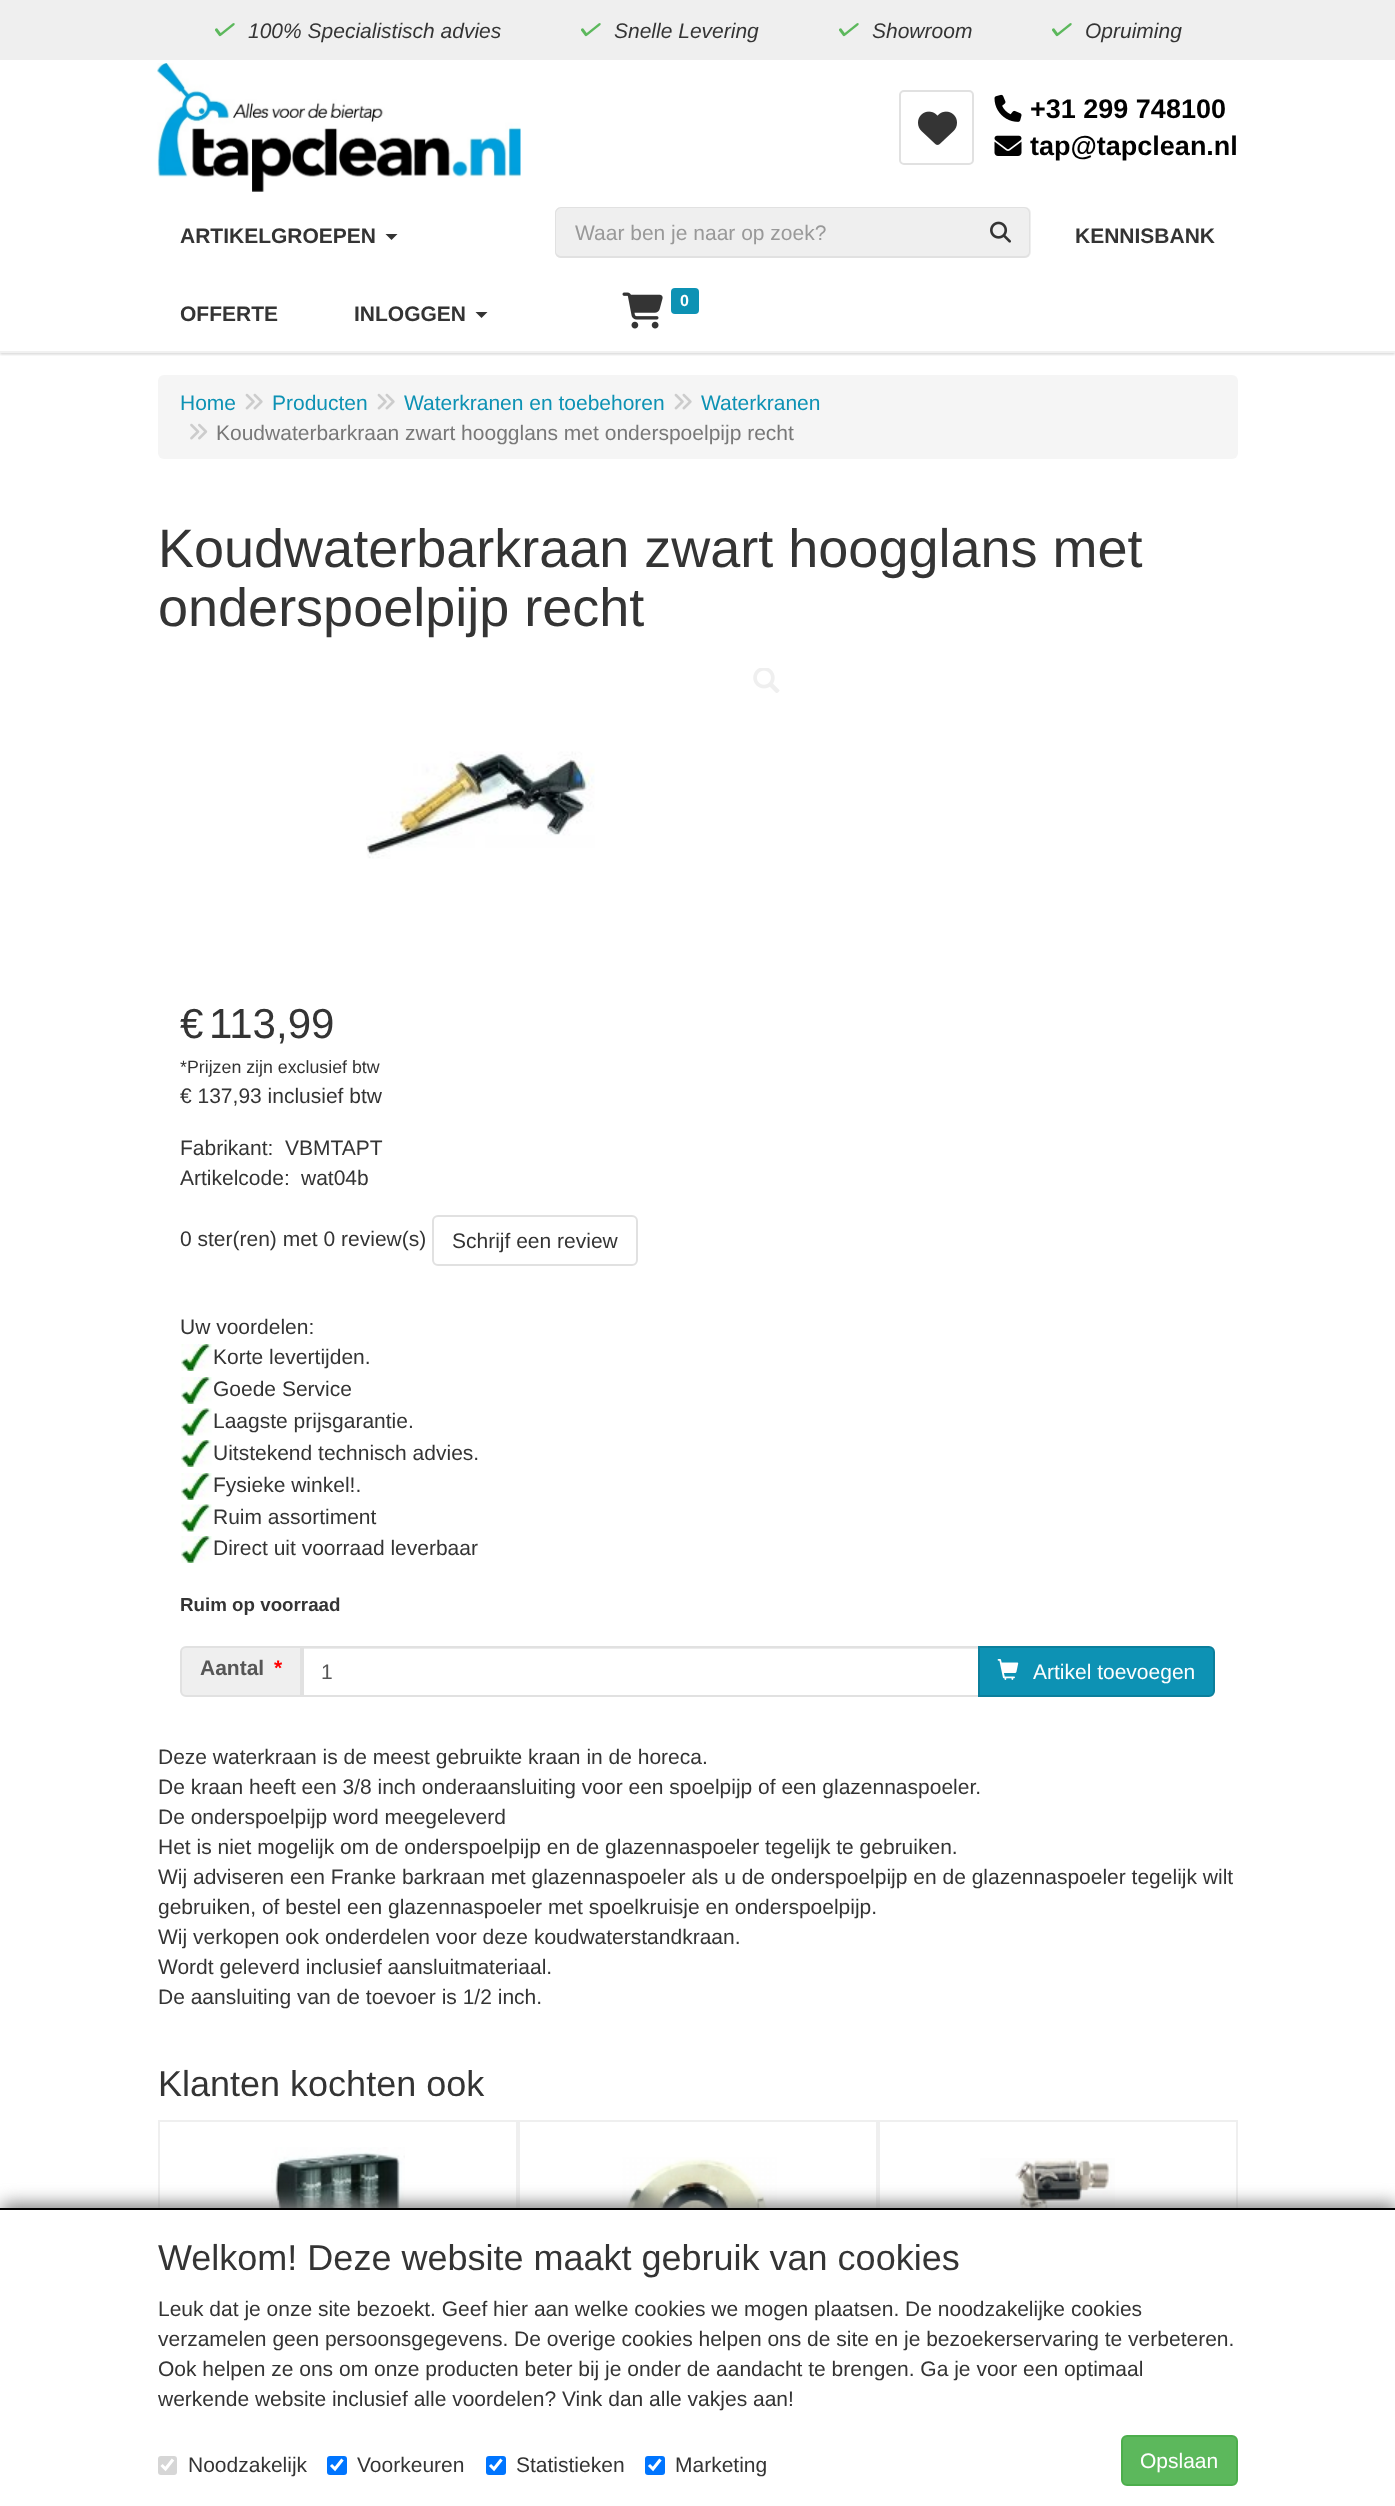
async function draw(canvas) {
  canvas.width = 1395
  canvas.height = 2506
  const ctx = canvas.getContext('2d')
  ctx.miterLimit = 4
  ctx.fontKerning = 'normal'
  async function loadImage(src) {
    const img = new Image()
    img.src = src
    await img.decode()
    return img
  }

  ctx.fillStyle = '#fff'
  ctx.fillRect(0, 0, 1395, 2506)
  ctx.fillStyle = '#efefef'
  ctx.fillRect(0, 0, 1395, 60)
  ctx.drawImage(await loadImage('image0.png'), 215, 23, 20, 14)
  ctx.font = 'italic 21px Liberation Sans'
  ctx.fillStyle = '#343434'
  ctx.fillText('100% Specialistisch advies', 248, 38)
  ctx.drawImage(await loadImage('image0.png'), 581, 23, 20, 14)
  ctx.fillText('Snelle Levering', 614, 38)
  ctx.drawImage(await loadImage('image0.png'), 839, 23, 20, 14)
  ctx.fillText('Showroom', 872, 38)
  ctx.drawImage(await loadImage('image0.png'), 1052, 23, 20, 14)
  ctx.fillText('Opruiming', 1085, 38)
  ctx.drawImage(await loadImage('image1.png'), 157, 63, 364, 129)
  ctx.beginPath()
  ctx.roundRect(900, 91, 73, 73, 4)
  ctx.strokeStyle = '#e1e1e1'
  ctx.lineWidth = 2
  ctx.stroke()
  ctx.drawImage(await loadImage('image2.png'), 918, 111, 39, 34)
  ctx.drawImage(await loadImage('image3.png'), 994, 94, 28, 28)
  ctx.font = 'bold 27px Liberation Sans'
  ctx.fillStyle = '#010101'
  ctx.fillText('+31 299 748100', 1030, 118)
  ctx.drawImage(await loadImage('image4.png'), 994, 135, 28, 21)
  ctx.fillText('tap@tapclean.nl', 1030, 155)
  ctx.save()
  ctx.beginPath()
  ctx.rect(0, 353, 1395, 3)
  ctx.clip()
  ctx.fillStyle = '#0000000d'
  ctx.filter = 'blur(1.5px)'
  ctx.beginPath()
  ctx.rect(0, 198, 1395, 158)
  ctx.fill()
  ctx.filter = 'none'
  ctx.restore()
  ctx.save()
  ctx.beginPath()
  ctx.rect(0, 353, 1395, 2)
  ctx.clip()
  ctx.fillStyle = '#0000001a'
  ctx.filter = 'blur(1px)'
  ctx.beginPath()
  ctx.rect(0, 197, 1395, 157)
  ctx.fill()
  ctx.filter = 'none'
  ctx.restore()
  ctx.fillStyle = '#f1f1f1'
  ctx.fillRect(0, 351, 1395, 2)
  ctx.font = 'bold 21px Liberation Sans'
  ctx.fillStyle = '#343434'
  ctx.fillText('ARTIKELGROEPEN', 180, 243)
  ctx.beginPath()
  ctx.moveTo(385.5, 234)
  ctx.lineTo(397.5, 234)
  ctx.lineTo(391.5, 240)
  ctx.closePath()
  ctx.fill()
  ctx.fillStyle = '#efefef'
  ctx.beginPath()
  ctx.roundRect(555, 207, 419, 51, [6, 0, 0, 6])
  ctx.fill()
  ctx.fillStyle = '#e1e1e1'
  ctx.beginPath()
  ctx.moveTo(561, 207)
  ctx.lineTo(974, 207)
  ctx.lineTo(974, 258)
  ctx.lineTo(561, 258)
  ctx.bezierCurveTo(558, 258, 555, 255, 555, 252)
  ctx.lineTo(555, 213)
  ctx.bezierCurveTo(555, 210, 558, 207, 561, 207)
  ctx.closePath()
  ctx.moveTo(561, 208)
  ctx.lineTo(974, 208)
  ctx.lineTo(974, 256)
  ctx.lineTo(561, 256)
  ctx.bezierCurveTo(559, 256, 556, 254, 556, 252)
  ctx.lineTo(556, 213)
  ctx.bezierCurveTo(556, 211, 559, 208, 561, 208)
  ctx.closePath()
  ctx.fill('evenodd')
  ctx.font = '21px Liberation Sans'
  ctx.fillStyle = '#999'
  ctx.fillText('Waar ben je naar op zoek?', 575, 240)
  ctx.fillStyle = '#efefef'
  ctx.beginPath()
  ctx.roundRect(972, 207, 59, 51, [0, 6, 6, 0])
  ctx.fill()
  ctx.fillStyle = '#e1e1e1'
  ctx.beginPath()
  ctx.moveTo(972, 207)
  ctx.lineTo(1024, 207)
  ctx.bezierCurveTo(1028, 207, 1030, 210, 1030, 213)
  ctx.lineTo(1030, 252)
  ctx.bezierCurveTo(1030, 255, 1028, 258, 1024, 258)
  ctx.lineTo(972, 258)
  ctx.closePath()
  ctx.moveTo(972, 208)
  ctx.lineTo(1024, 208)
  ctx.bezierCurveTo(1027, 208, 1029, 211, 1029, 213)
  ctx.lineTo(1029, 252)
  ctx.bezierCurveTo(1029, 254, 1027, 256, 1024, 256)
  ctx.lineTo(972, 256)
  ctx.closePath()
  ctx.fill('evenodd')
  ctx.drawImage(await loadImage('image5.png'), 990, 221, 21, 22)
  ctx.font = 'bold 21px Liberation Sans'
  ctx.fillStyle = '#343434'
  ctx.fillText('KENNISBANK', 1075, 243)
  ctx.drawImage(await loadImage('image6.png'), 622, 292, 41, 37)
  ctx.fillStyle = '#0d92b4'
  ctx.beginPath()
  ctx.roundRect(671, 288, 28, 26, 4)
  ctx.fill()
  ctx.font = 'bold 16px Liberation Sans'
  ctx.fillStyle = '#fefefe'
  ctx.fillText('0', 680, 306)
  ctx.font = 'bold 21px Liberation Sans'
  ctx.fillStyle = '#343434'
  ctx.fillText('OFFERTE', 180, 321)
  ctx.fillText('INLOGGEN', 354, 321)
  ctx.beginPath()
  ctx.moveTo(475.5, 312)
  ctx.lineTo(487.5, 312)
  ctx.lineTo(481.5, 318)
  ctx.closePath()
  ctx.fill()
  ctx.fillStyle = '#f5f5f5'
  ctx.beginPath()
  ctx.roundRect(158, 375, 1080, 84, 6)
  ctx.fill()
  ctx.font = '21px Liberation Sans'
  ctx.fillStyle = '#0d92b4'
  ctx.fillText('Home', 180, 410)
  ctx.drawImage(await loadImage('image7.png'), 245, 393, 18, 17)
  ctx.fillText('Producten', 272, 410)
  ctx.drawImage(await loadImage('image7.png'), 377, 393, 18, 17)
  ctx.fillText('Waterkranen en toebehoren', 404, 410)
  ctx.drawImage(await loadImage('image7.png'), 674, 393, 18, 17)
  ctx.fillText('Waterkranen', 701, 410)
  ctx.drawImage(await loadImage('image8.png'), 190, 423, 18, 17)
  ctx.fillStyle = '#787878'
  ctx.fillText('Koudwaterbarkraan zwart hoogglans met onderspoelpijp recht', 216, 440)
  ctx.font = '54px Liberation Sans'
  ctx.fillStyle = '#343434'
  ctx.fillText('Koudwaterbarkraan zwart hoogglans met', 158, 567)
  ctx.fillText('onderspoelpijp recht', 158, 626)
  ctx.drawImage(await loadImage('image9.png'), 753, 668, 27, 25)
  ctx.drawImage(await loadImage('image10.png'), 366, 751, 229, 108)
  ctx.font = '42px Liberation Sans'
  ctx.fillText('€', 180, 1038)
  ctx.fillText('113,99', 209, 1038)
  ctx.font = '17.8px Liberation Sans'
  ctx.fillText('*Prijzen zijn exclusief btw', 180, 1073)
  ctx.font = '21px Liberation Sans'
  ctx.fillText('€ 137,93 inclusief btw', 180, 1103)
  ctx.fillText('Fabrikant:', 180, 1155)
  ctx.fillText('VBMTAPT', 285, 1155)
  ctx.fillText('Artikelcode:', 180, 1185)
  ctx.fillText('wat04b', 301, 1185)
  ctx.fillText('0 ster(ren) met 0 review(s)', 180, 1246)
  ctx.beginPath()
  ctx.roundRect(433, 1216, 204, 49, 5)
  ctx.stroke()
  ctx.fillText('Schrijf een review', 452, 1248)
  ctx.fillText('Uw voordelen:', 180, 1334)
  ctx.drawImage(await loadImage('image11.png'), 181, 1344, 31, 27)
  ctx.fillText('Korte levertijden.', 213, 1364)
  ctx.drawImage(await loadImage('image11.png'), 181, 1377, 31, 27)
  ctx.fillText('Goede Service', 213, 1396)
  ctx.drawImage(await loadImage('image12.png'), 181, 1408, 31, 28)
  ctx.fillText('Laagste prijsgarantie.', 213, 1428)
  ctx.drawImage(await loadImage('image11.png'), 181, 1440, 31, 27)
  ctx.fillText('Uitstekend technisch advies.', 213, 1460)
  ctx.drawImage(await loadImage('image11.png'), 181, 1473, 31, 27)
  ctx.fillText('Fysieke winkel!.', 213, 1492)
  ctx.drawImage(await loadImage('image12.png'), 181, 1504, 31, 28)
  ctx.fillText('Ruim assortiment', 213, 1524)
  ctx.drawImage(await loadImage('image11.png'), 181, 1536, 31, 27)
  ctx.fillText('Direct uit voorraad leverbaar', 213, 1555)
  ctx.font = 'bold 18.75px Liberation Sans'
  ctx.fillText('Ruim op voorraad', 180, 1611)
  ctx.fillStyle = '#efefef'
  ctx.beginPath()
  ctx.roundRect(181, 1647, 120, 49, [5, 0, 0, 5])
  ctx.fill()
  ctx.stroke()
  ctx.font = 'bold 21px Liberation Sans'
  ctx.fillStyle = '#565656'
  ctx.fillText('Aantal', 200, 1675)
  ctx.fillStyle = '#f00'
  ctx.fillText('*', 274, 1675)
  ctx.fillStyle = '#ececec'
  ctx.fillRect(303, 1648, 675, 1)
  ctx.strokeRect(303, 1647, 676, 49)
  ctx.font = '21px Liberation Sans'
  ctx.fillStyle = '#565656'
  ctx.fillText('1', 321, 1679)
  ctx.fillStyle = '#0d92b4'
  ctx.beginPath()
  ctx.roundRect(979, 1647, 235, 49, [0, 5, 5, 0])
  ctx.fill()
  ctx.strokeStyle = '#0b7f9c'
  ctx.stroke()
  ctx.drawImage(await loadImage('image13.png'), 997, 1659, 22, 21)
  ctx.fillStyle = '#fefefe'
  ctx.fillText('Artikel toevoegen', 1033, 1679)
  ctx.fillStyle = '#343434'
  ctx.fillText('Deze waterkraan is de meest gebruikte kraan in de horeca.', 158, 1764)
  ctx.fillText('De kraan heeft een 3/8 inch onderaansluiting voor een spoelpijp of een glazennaspoeler.', 158, 1794)
  ctx.fillText('De onderspoelpijp word meegeleverd', 158, 1824)
  ctx.fillText('Het is niet mogelijk om de onderspoelpijp en de glazennaspoeler tegelijk te gebruiken.', 158, 1854)
  ctx.fillText('Wij adviseren een Franke barkraan met glazennaspoeler als u de onderspoelpijp en de glazennaspoeler tegelijk wilt', 158, 1884)
  ctx.fillText('gebruiken, of bestel een glazennaspoeler met spoelkruisje en onderspoelpijp.', 158, 1914)
  ctx.fillText('Wij verkopen ook onderdelen voor deze koudwaterstandkraan.', 158, 1944)
  ctx.fillText('Wordt geleverd inclusief aansluitmateriaal.', 158, 1974)
  ctx.fillText('De aansluiting van de toevoer is 1/2 inch.', 158, 2004)
  ctx.font = '36px Liberation Sans'
  ctx.fillText('Klanten kochten ook', 158, 2096)
  ctx.strokeStyle = '#efefef'
  ctx.strokeRect(159, 2121, 358, 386)
  ctx.drawImage(await loadImage('image14.png'), 271, 2147, 134, 61)
  ctx.strokeRect(519, 2121, 358, 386)
  ctx.drawImage(await loadImage('image15.png'), 622, 2157, 155, 51)
  ctx.strokeRect(879, 2121, 358, 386)
  ctx.drawImage(await loadImage('image16.png'), 980, 2158, 135, 50)
  ctx.fillStyle = '#808080'
  ctx.filter = 'blur(9px)'
  ctx.beginPath()
  ctx.rect(2, 2204, 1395, 298)
  ctx.fill()
  ctx.filter = 'none'
  ctx.fillStyle = '#fff'
  ctx.fillRect(0, 2210, 1395, 296)
  ctx.fillStyle = '#000'
  ctx.fillRect(0, 2208, 1395, 2)
  ctx.fillStyle = '#343434'
  ctx.fillText('Welkom! Deze website maakt gebruik van cookies', 158, 2270)
  ctx.font = '21px Liberation Sans'
  ctx.fillText('Leuk dat je onze site bezoekt. Geef hier aan welke cookies we mogen plaatsen. De noodzakelijke cookies', 158, 2316)
  ctx.fillText('verzamelen geen persoonsgegevens. De overige cookies helpen ons de site en je bezoekerservaring te verbeteren.', 158, 2346)
  ctx.fillText('Ook helpen ze ons om onze producten beter bij je onder de aandacht te brengen. Ga je voor een optimaal', 158, 2376)
  ctx.fillText('werkende website inclusief alle voordelen? Vink dan alle vakjes aan!', 158, 2406)
  ctx.fillStyle = '#d6d6d6'
  ctx.beginPath()
  ctx.roundRect(158, 2456, 19, 19, 3)
  ctx.fill()
  ctx.beginPath()
  ctx.moveTo(161.5, 2465)
  ctx.lineTo(165.5, 2469)
  ctx.lineTo(173, 2459.5)
  ctx.strokeStyle = '#fff'
  ctx.lineWidth = 3.1
  ctx.stroke()
  ctx.fillStyle = '#343434'
  ctx.fillText('Noodzakelijk', 188, 2472)
  ctx.fillStyle = '#0075ff'
  ctx.beginPath()
  ctx.roundRect(327, 2456, 20, 19, 3)
  ctx.fill()
  ctx.beginPath()
  ctx.moveTo(331, 2465)
  ctx.lineTo(335, 2469)
  ctx.lineTo(342.5, 2459.5)
  ctx.stroke()
  ctx.fillStyle = '#343434'
  ctx.fillText('Voorkeuren', 357, 2472)
  ctx.fillStyle = '#0075ff'
  ctx.beginPath()
  ctx.roundRect(486, 2456, 20, 19, 3)
  ctx.fill()
  ctx.beginPath()
  ctx.moveTo(490, 2465)
  ctx.lineTo(494, 2469)
  ctx.lineTo(501.5, 2459.5)
  ctx.stroke()
  ctx.fillStyle = '#343434'
  ctx.fillText('Statistieken', 516, 2472)
  ctx.fillStyle = '#0075ff'
  ctx.beginPath()
  ctx.roundRect(645, 2456, 20, 19, 3)
  ctx.fill()
  ctx.beginPath()
  ctx.moveTo(649, 2465)
  ctx.lineTo(653, 2469)
  ctx.lineTo(660.5, 2459.5)
  ctx.stroke()
  ctx.fillStyle = '#343434'
  ctx.fillText('Marketing', 675, 2472)
  ctx.fillStyle = '#5cb85c'
  ctx.beginPath()
  ctx.roundRect(1122, 2436, 115, 49, 5)
  ctx.fill()
  ctx.strokeStyle = '#4cae4c'
  ctx.lineWidth = 2
  ctx.stroke()
  ctx.fillStyle = '#fefefe'
  ctx.fillText('Opslaan', 1140, 2468)
}

draw(document.querySelector('canvas'))
